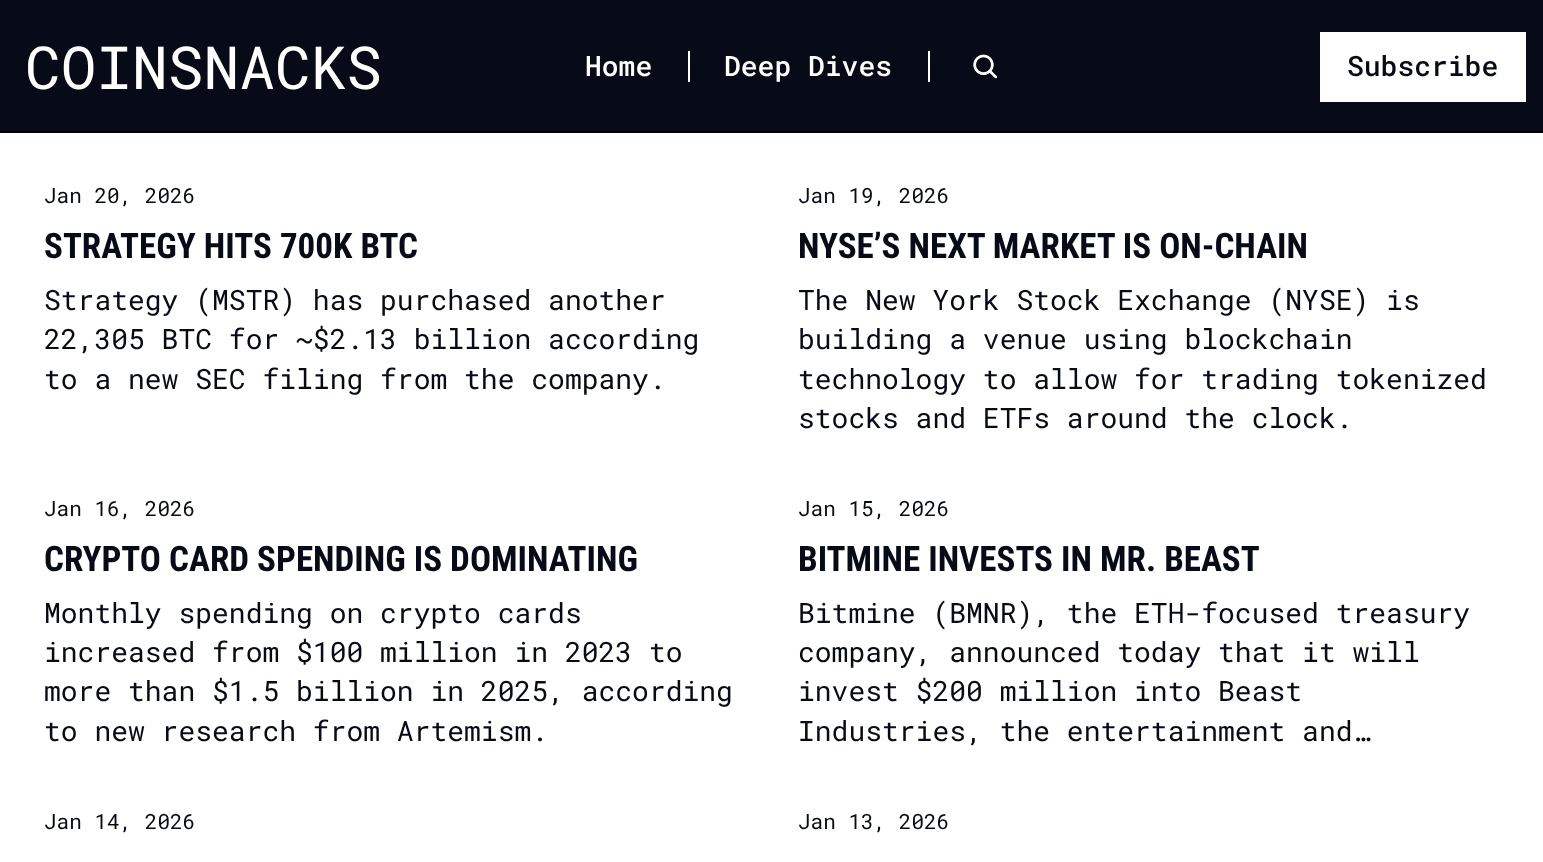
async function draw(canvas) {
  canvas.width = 1543
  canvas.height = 862
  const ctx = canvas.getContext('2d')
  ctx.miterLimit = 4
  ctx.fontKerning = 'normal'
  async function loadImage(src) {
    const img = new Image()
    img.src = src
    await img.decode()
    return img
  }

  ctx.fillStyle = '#fff'
  ctx.fillRect(0, 0, 1543, 862)
  ctx.fillStyle = '#000'
  ctx.fillRect(0, 131, 1543, 2)
  ctx.fillStyle = '#070b17'
  ctx.fillRect(0, 0, 1543, 131)
  ctx.font = '59.5px Roboto Mono'
  ctx.fillStyle = '#fff'
  ctx.fillText('COINSNACKS', 25, 89)
  ctx.font = '500 28px Roboto Mono'
  ctx.fillText('Home', 585, 76)
  ctx.fillRect(688, 51, 2, 31)
  ctx.fillText('Deep Dives', 724, 76)
  ctx.fillRect(928, 51, 2, 31)
  ctx.drawImage(await loadImage('image0.png'), 973, 54, 24, 25)
  ctx.fillRect(1320, 32, 206, 70)
  ctx.fillStyle = '#070b17'
  ctx.fillText('Subscribe', 1347, 76)
  ctx.font = '21px Roboto Mono'
  ctx.fillText('Jan 20, 2026', 44, 203)
  ctx.font = 'bold 35px Roboto Condensed'
  ctx.fillText('STRATEGY HITS 700K BTC', 44, 258)
  ctx.font = '28px Roboto Mono'
  ctx.fillText('Strategy (MSTR) has purchased another', 44, 310)
  ctx.fillText('22,305 BTC for ~$2.13 billion according', 44, 349)
  ctx.fillText('to a new SEC filing from the company.', 44, 389)
  ctx.font = '21px Roboto Mono'
  ctx.fillText('Jan 19, 2026', 798, 203)
  ctx.font = 'bold 35px Roboto Condensed'
  ctx.fillText('NYSE’S NEXT MARKET IS ON-CHAIN', 798, 258)
  ctx.font = '28px Roboto Mono'
  ctx.fillText('The New York Stock Exchange (NYSE) is', 798, 310)
  ctx.fillText('building a venue using blockchain', 798, 349)
  ctx.fillText('technology to allow for trading tokenized', 798, 389)
  ctx.fillText('stocks and ETFs around the clock.', 798, 428)
  ctx.font = '21px Roboto Mono'
  ctx.fillText('Jan 16, 2026', 44, 516)
  ctx.font = 'bold 35px Roboto Condensed'
  ctx.fillText('CRYPTO CARD SPENDING IS DOMINATING', 44, 571)
  ctx.font = '28px Roboto Mono'
  ctx.fillText('Monthly spending on crypto cards', 44, 623)
  ctx.fillText('increased from $100 million in 2023 to', 44, 662)
  ctx.fillText('more than $1.5 billion in 2025, according', 44, 701)
  ctx.fillText('to new research from Artemism.', 44, 741)
  ctx.font = '21px Roboto Mono'
  ctx.fillText('Jan 15, 2026', 798, 516)
  ctx.font = 'bold 35px Roboto Condensed'
  ctx.fillText('BITMINE INVESTS IN MR. BEAST', 798, 571)
  ctx.font = '28px Roboto Mono'
  ctx.fillText('Bitmine (BMNR), the ETH-focused treasury', 798, 623)
  ctx.fillText('company, announced today that it will', 798, 662)
  ctx.fillText('invest $200 million into Beast', 798, 701)
  ctx.fillText('Industries, the entertainment and…', 798, 741)
  ctx.font = '21px Roboto Mono'
  ctx.fillText('Jan 14, 2026', 44, 829)
  ctx.fillText('Jan 13, 2026', 798, 829)
}

draw(document.querySelector('canvas'))
